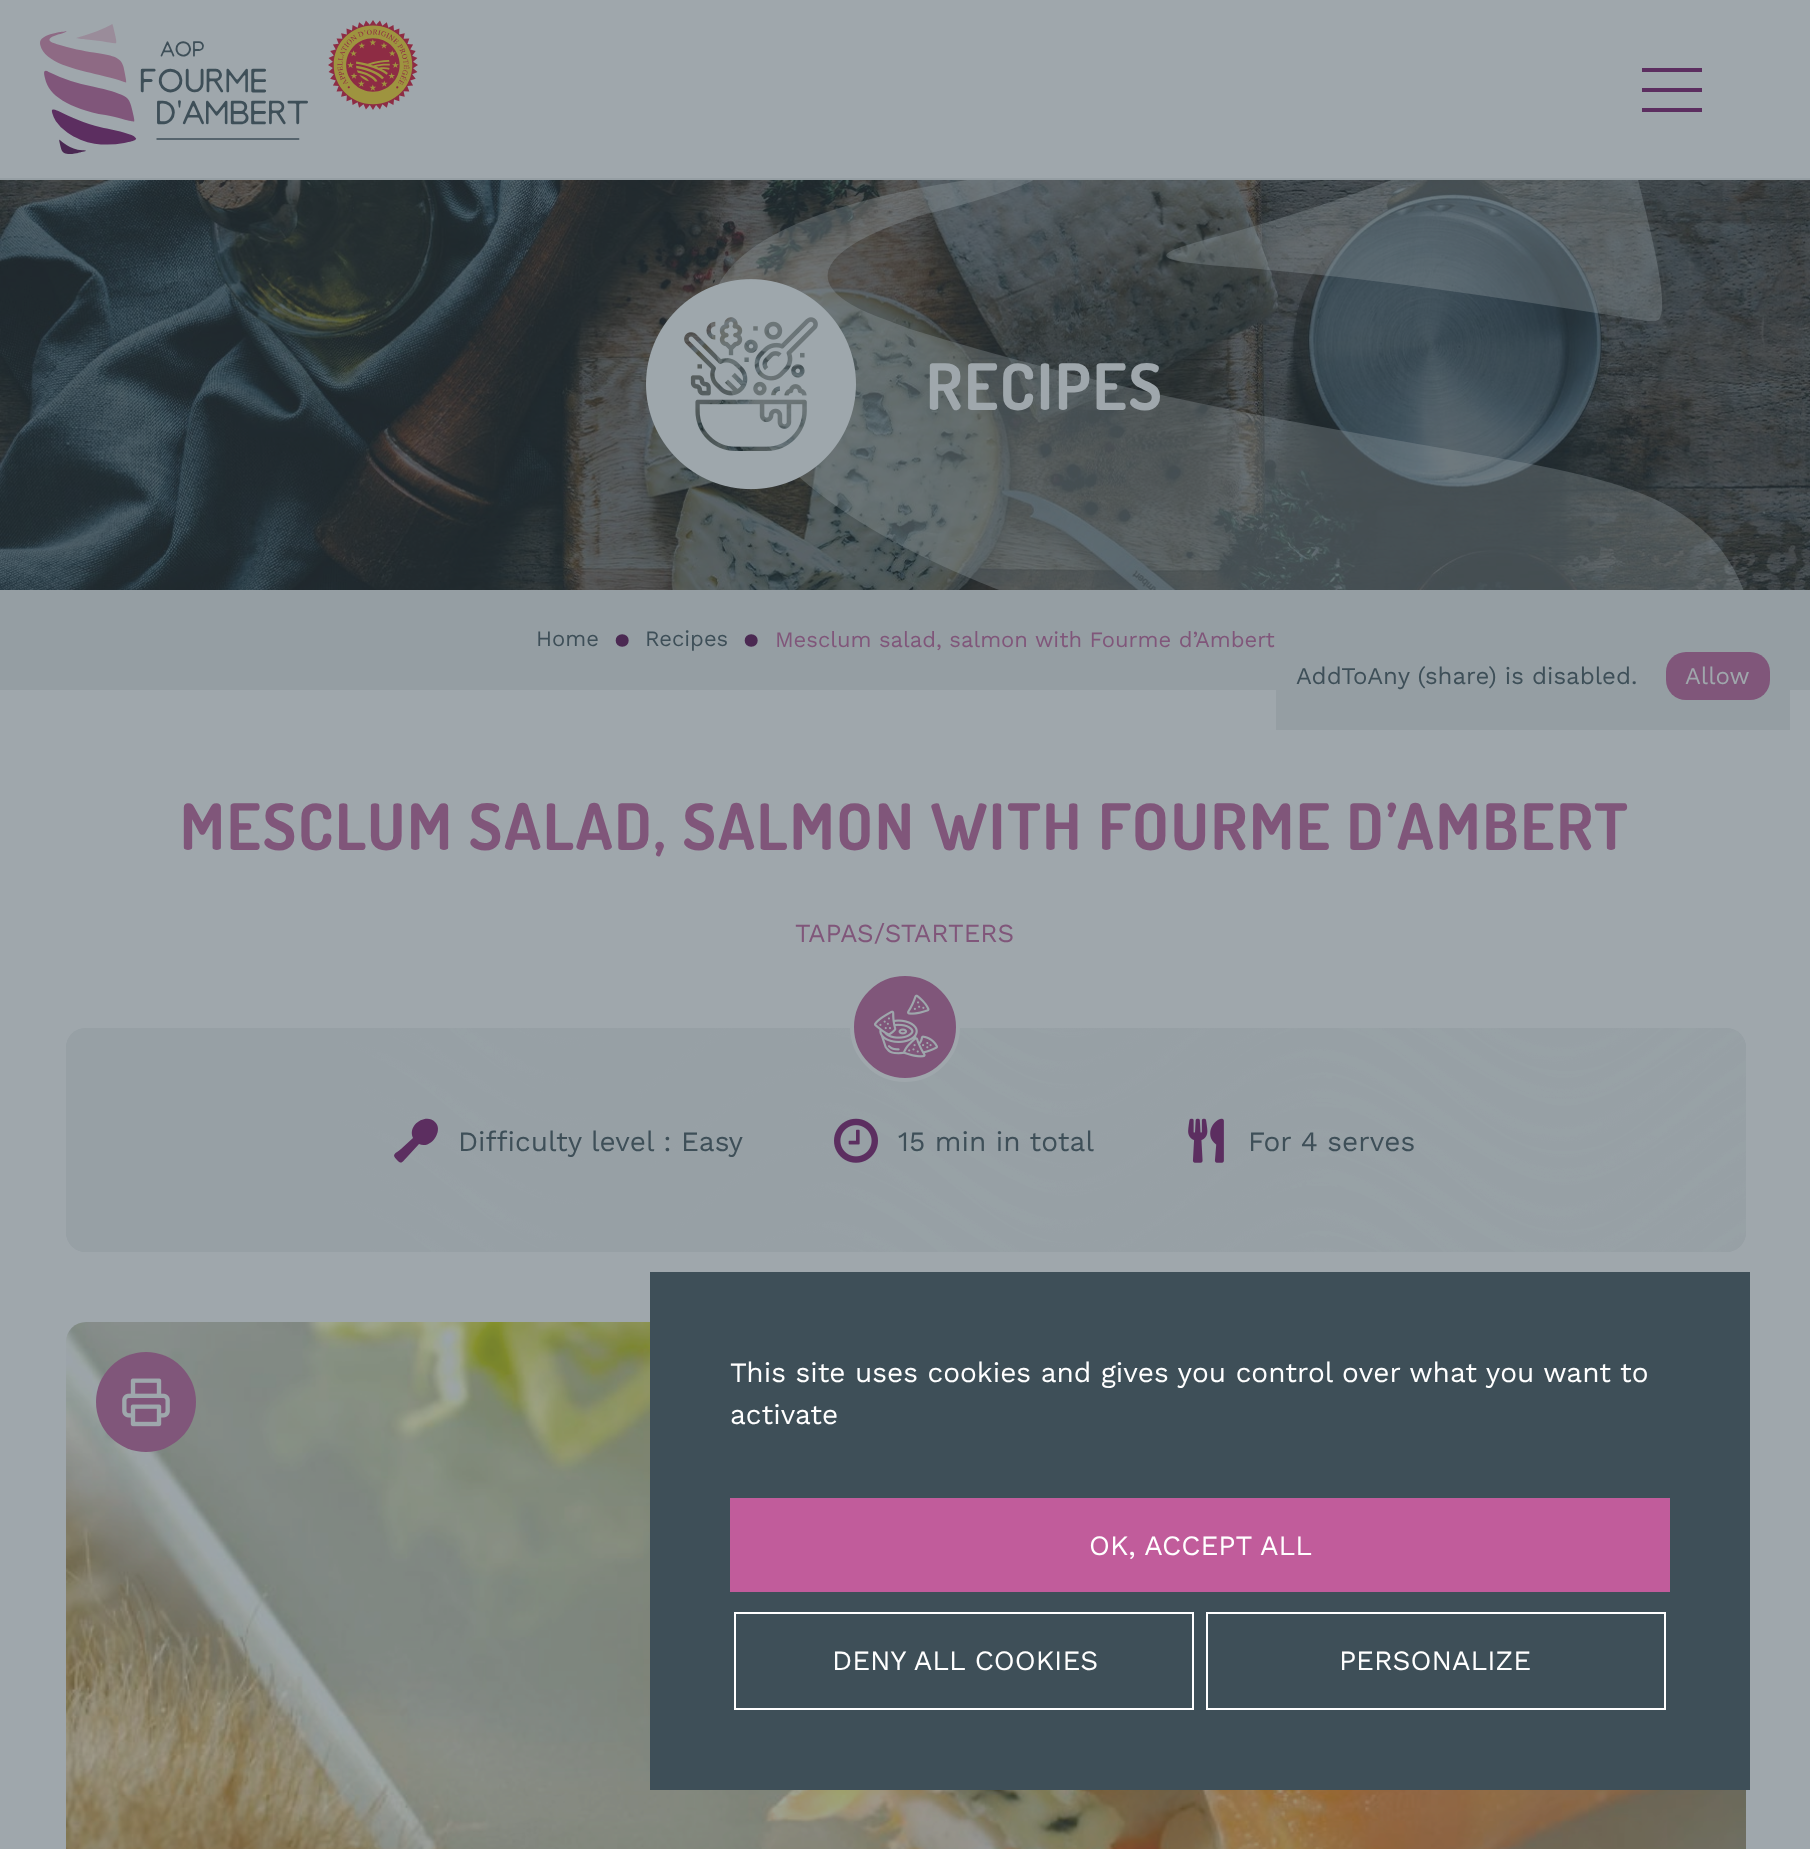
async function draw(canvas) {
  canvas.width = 1810
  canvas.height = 1849
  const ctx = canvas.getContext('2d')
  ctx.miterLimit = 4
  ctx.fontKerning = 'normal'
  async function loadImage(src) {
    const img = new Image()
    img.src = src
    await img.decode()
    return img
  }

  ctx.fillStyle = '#9fa7ac'
  ctx.fillRect(0, 0, 1810, 1849)
  ctx.fillStyle = '#959ea3'
  ctx.fillRect(0, 178, 1810, 2)
  ctx.drawImage(await loadImage('image0.png'), 40, 24, 268, 130)
  ctx.drawImage(await loadImage('image1.png'), 328, 20, 90, 90)
  ctx.fillStyle = '#5c2e60'
  ctx.fillRect(1642, 88, 60, 4)
  ctx.fillRect(1642, 68, 60, 4)
  ctx.fillRect(1642, 108, 60, 4)
  ctx.drawImage(await loadImage('image2.png'), 0, 180, 1810, 410)
  ctx.drawImage(await loadImage('image3.png'), 710, 180, 1034, 410)
  ctx.drawImage(await loadImage('image4.png'), 646, 279, 210, 211)
  ctx.letterSpacing = '2px'
  ctx.font = 'bold 64px Dosis'
  ctx.fillStyle = '#9fa7ac'
  ctx.fillText('RECIPES', 926, 410)
  ctx.fillStyle = '#959ea3'
  ctx.fillRect(0, 590, 1810, 100)
  ctx.letterSpacing = '0px'
  ctx.font = '22px Work Sans'
  ctx.fillStyle = '#3e4f58'
  ctx.fillText('Home', 536, 646)
  ctx.font = '52px Work Sans'
  ctx.fillStyle = '#4b2952'
  ctx.fillText('•', 611, 658)
  ctx.font = '22px Work Sans'
  ctx.fillStyle = '#3e4f58'
  ctx.fillText('Recipes', 645, 646)
  ctx.font = '52px Work Sans'
  ctx.fillStyle = '#4b2952'
  ctx.fillText('•', 740, 658)
  ctx.font = '22px Work Sans'
  ctx.fillStyle = '#80567a'
  ctx.fillText('Mesclum salad, salmon with Fourme d’Ambert', 775, 647)
  ctx.fillStyle = '#959ea3'
  ctx.fillRect(1276, 690, 514, 40)
  ctx.font = '24px Work Sans'
  ctx.fillStyle = '#3e4f58'
  ctx.fillText('AddToAny (share) is disabled.', 1296, 684)
  ctx.fillStyle = '#80567a'
  ctx.beginPath()
  ctx.roundRect(1666, 652, 104, 48, 20)
  ctx.fill()
  ctx.fillStyle = '#9fa7ac'
  ctx.fillText('Allow', 1685, 684)
  ctx.letterSpacing = '2px'
  ctx.font = 'bold 64px Dosis'
  ctx.fillStyle = '#80567a'
  ctx.fillText('MESCLUM SALAD, SALMON WITH FOURME D’AMBERT', 180, 850)
  ctx.letterSpacing = '0px'
  ctx.font = '26px Work Sans'
  ctx.fillText('TAPAS/STARTERS', 795, 942)
  ctx.fillStyle = '#959ea3'
  ctx.beginPath()
  ctx.roundRect(66, 1028, 1680, 224, 20)
  ctx.fill()
  ctx.drawImage(await loadImage('image6.png'), 66, 1028, 1680, 224)
  ctx.fillStyle = '#80567a'
  ctx.beginPath()
  ctx.arc(905, 1027, 53, 0, 2 * Math.PI)
  ctx.fill()
  ctx.strokeStyle = '#9fa7ac'
  ctx.lineWidth = 4
  ctx.stroke()
  ctx.drawImage(await loadImage('image5.png'), 874, 994, 64, 64)
  ctx.fillStyle = '#5c2e60'
  ctx.beginPath()
  ctx.moveTo(435, 1122)
  ctx.bezierCurveTo(426, 1113, 407, 1125, 413, 1138)
  ctx.lineTo(401, 1149)
  ctx.bezierCurveTo(395, 1154, 391, 1154, 397, 1160)
  ctx.bezierCurveTo(402, 1165, 402, 1162, 408, 1156)
  ctx.lineTo(419, 1144)
  ctx.bezierCurveTo(431, 1150, 444, 1130, 435, 1122)
  ctx.closePath()
  ctx.fill()
  ctx.font = '28px Work Sans'
  ctx.fillStyle = '#3e4f58'
  ctx.fillText('Difficulty level : Easy', 458, 1151)
  ctx.drawImage(await loadImage('image7.png'), 834, 1118, 44, 45)
  ctx.fillText('15 min in total', 898, 1151)
  ctx.drawImage(await loadImage('image8.png'), 1188, 1118, 36, 45)
  ctx.fillText('For 4 serves', 1248, 1151)
  ctx.drawImage(await loadImage('image9.png'), 66, 1322, 1680, 527)
  ctx.fillStyle = '#80567a'
  ctx.beginPath()
  ctx.arc(146, 1402, 50, 0, 2 * Math.PI)
  ctx.fill()
  ctx.drawImage(await loadImage('image10.png'), 122, 1378, 48, 49)
  ctx.fillStyle = '#3e4f58'
  ctx.fillRect(650, 1272, 1100, 518)
  ctx.fillStyle = '#fff'
  ctx.fillText('This site uses cookies and gives you control over what you want to', 730, 1382)
  ctx.fillText('activate', 730, 1424)
  ctx.fillStyle = '#c15c9b'
  ctx.fillRect(730, 1498, 940, 94)
  ctx.fillStyle = '#fff'
  ctx.fillText('OK, ACCEPT ALL', 1089, 1555)
  ctx.strokeStyle = '#fff'
  ctx.lineWidth = 2
  ctx.strokeRect(735, 1613, 458, 96)
  ctx.fillText('DENY ALL COOKIES', 832, 1670)
  ctx.strokeRect(1207, 1613, 458, 96)
  ctx.fillText('PERSONALIZE', 1339, 1670)
}

draw(document.querySelector('canvas'))
